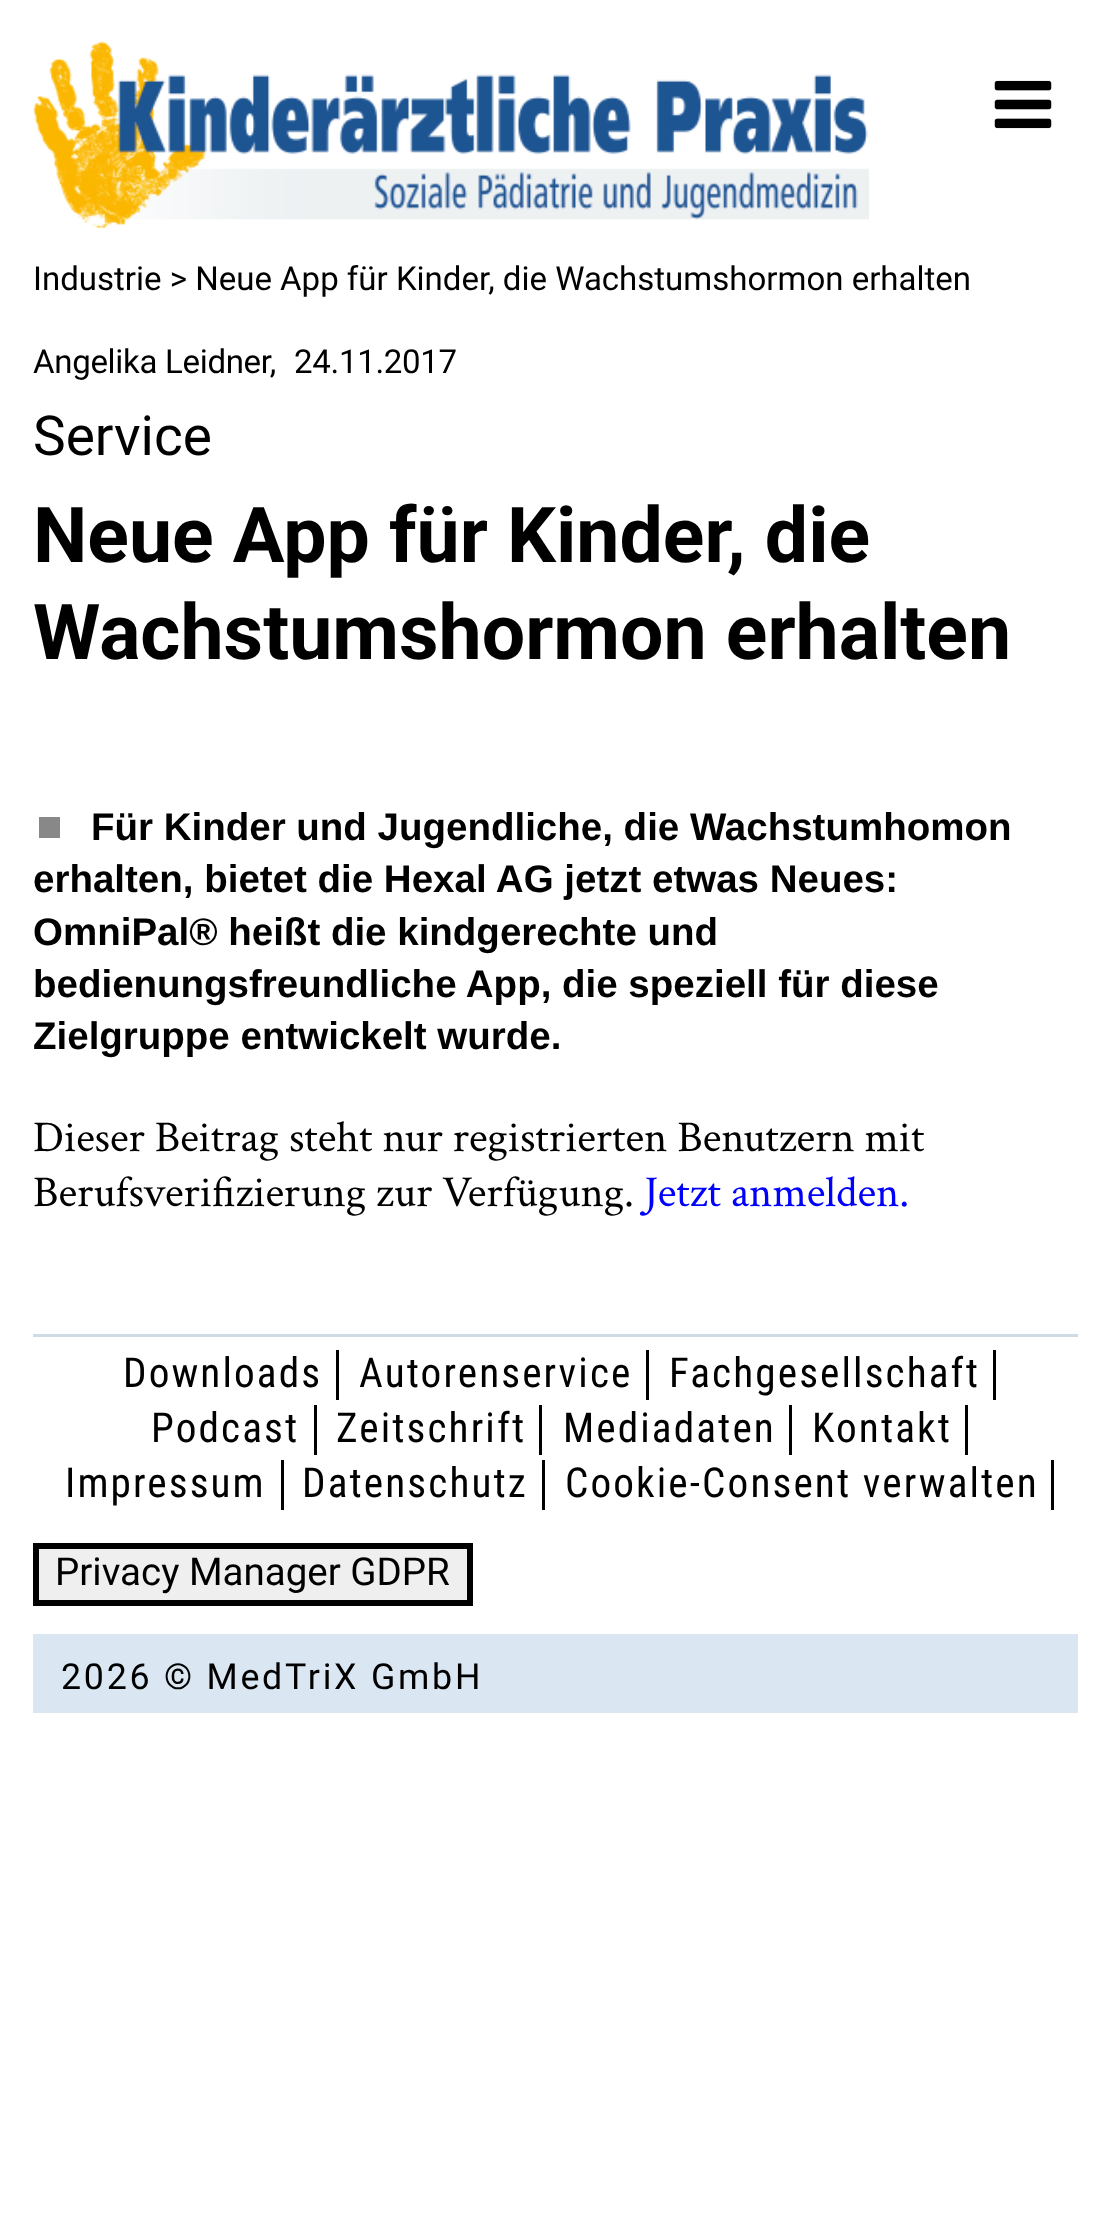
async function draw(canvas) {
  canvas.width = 1109
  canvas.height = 2215
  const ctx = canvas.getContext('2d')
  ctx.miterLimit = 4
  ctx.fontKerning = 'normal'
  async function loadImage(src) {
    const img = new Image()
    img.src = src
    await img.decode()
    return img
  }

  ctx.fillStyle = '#fff'
  ctx.fillRect(0, 0, 1109, 2215)
  ctx.drawImage(await loadImage('image0.png'), 33, 41, 836, 189)
  ctx.drawImage(await loadImage('image1.png'), 994, 80, 58, 49)
  ctx.font = '33px Roboto'
  ctx.fillStyle = '#000'
  ctx.fillText('Industrie > Neue App für Kinder, die Wachstumshormon erhalten', 33, 290)
  ctx.letterSpacing = '-0.3px'
  ctx.fillText('Angelika Leidner,', 33, 373)
  ctx.fillText('24.11.2017', 294, 373)
  ctx.letterSpacing = '0px'
  ctx.font = '55px Roboto'
  ctx.fillText('Service', 33, 455)
  ctx.font = 'bold 77px Roboto'
  ctx.fillText('Neue App für Kinder, die', 33, 562)
  ctx.fillText('Wachstumshormon erhalten', 33, 659)
  ctx.fillStyle = '#888'
  ctx.fillRect(39, 817, 21, 21)
  ctx.font = 'bold 38.5px Liberation Sans'
  ctx.fillStyle = '#000'
  ctx.fillText('Für Kinder und Jugendliche, die Wachstumhomon', 91, 840)
  ctx.fillText('erhalten, bietet die Hexal AG jetzt etwas Neues:', 33, 892)
  ctx.fillText('OmniPal® heißt die kindgerechte und', 33, 945)
  ctx.fillText('bedienungsfreundliche App, die speziell für diese', 33, 997)
  ctx.fillText('Zielgruppe entwickelt wurde.', 33, 1049)
  ctx.font = '44px Crimson Text'
  ctx.fillText('Dieser Beitrag steht nur registrierten Benutzern mit', 33, 1151)
  ctx.fillText('Berufsverifizierung zur Verfügung.', 33, 1206)
  ctx.fillStyle = '#00f'
  ctx.fillText('Jetzt anmelden.', 644, 1206)
  ctx.fillStyle = '#cfdbe5'
  ctx.fillRect(33, 1334, 1045, 3)
  ctx.fillStyle = '#000'
  ctx.fillRect(336, 1350, 3, 50)
  ctx.letterSpacing = '2.1px'
  ctx.font = '41.25px Roboto Condensed'
  ctx.fillText('Downloads', 123, 1387)
  ctx.fillRect(646, 1350, 3, 50)
  ctx.fillText('Autorenservice', 359, 1387)
  ctx.fillRect(993, 1350, 3, 50)
  ctx.fillText('Fachgesellschaft', 669, 1387)
  ctx.fillRect(314, 1405, 3, 50)
  ctx.fillText('Podcast', 151, 1442)
  ctx.fillRect(539, 1405, 3, 50)
  ctx.fillText('Zeitschrift', 336, 1442)
  ctx.fillRect(789, 1405, 3, 50)
  ctx.fillText('Mediadaten', 563, 1442)
  ctx.fillRect(965, 1405, 3, 50)
  ctx.fillText('Kontakt', 812, 1442)
  ctx.fillRect(281, 1460, 3, 50)
  ctx.fillText('Impressum', 65, 1497)
  ctx.fillRect(542, 1460, 3, 50)
  ctx.fillText('Datenschutz', 302, 1497)
  ctx.fillRect(1051, 1460, 3, 50)
  ctx.fillText('Cookie-Consent verwalten', 565, 1497)
  ctx.fillStyle = '#efefef'
  ctx.beginPath()
  ctx.rect(36, 1546, 434, 57)
  ctx.fill()
  ctx.strokeStyle = '#000'
  ctx.lineWidth = 6
  ctx.stroke()
  ctx.letterSpacing = '0px'
  ctx.font = '38.5px Roboto'
  ctx.fillStyle = '#000'
  ctx.fillText('Privacy Manager GDPR', 55, 1585)
  ctx.fillStyle = '#dae7f2'
  ctx.fillRect(33, 1634, 1045, 79)
  ctx.letterSpacing = '2.75px'
  ctx.font = '35.75px Roboto'
  ctx.fillStyle = '#000'
  ctx.fillText('2026 © MedTriX GmbH', 61, 1689)
}

draw(document.querySelector('canvas'))
